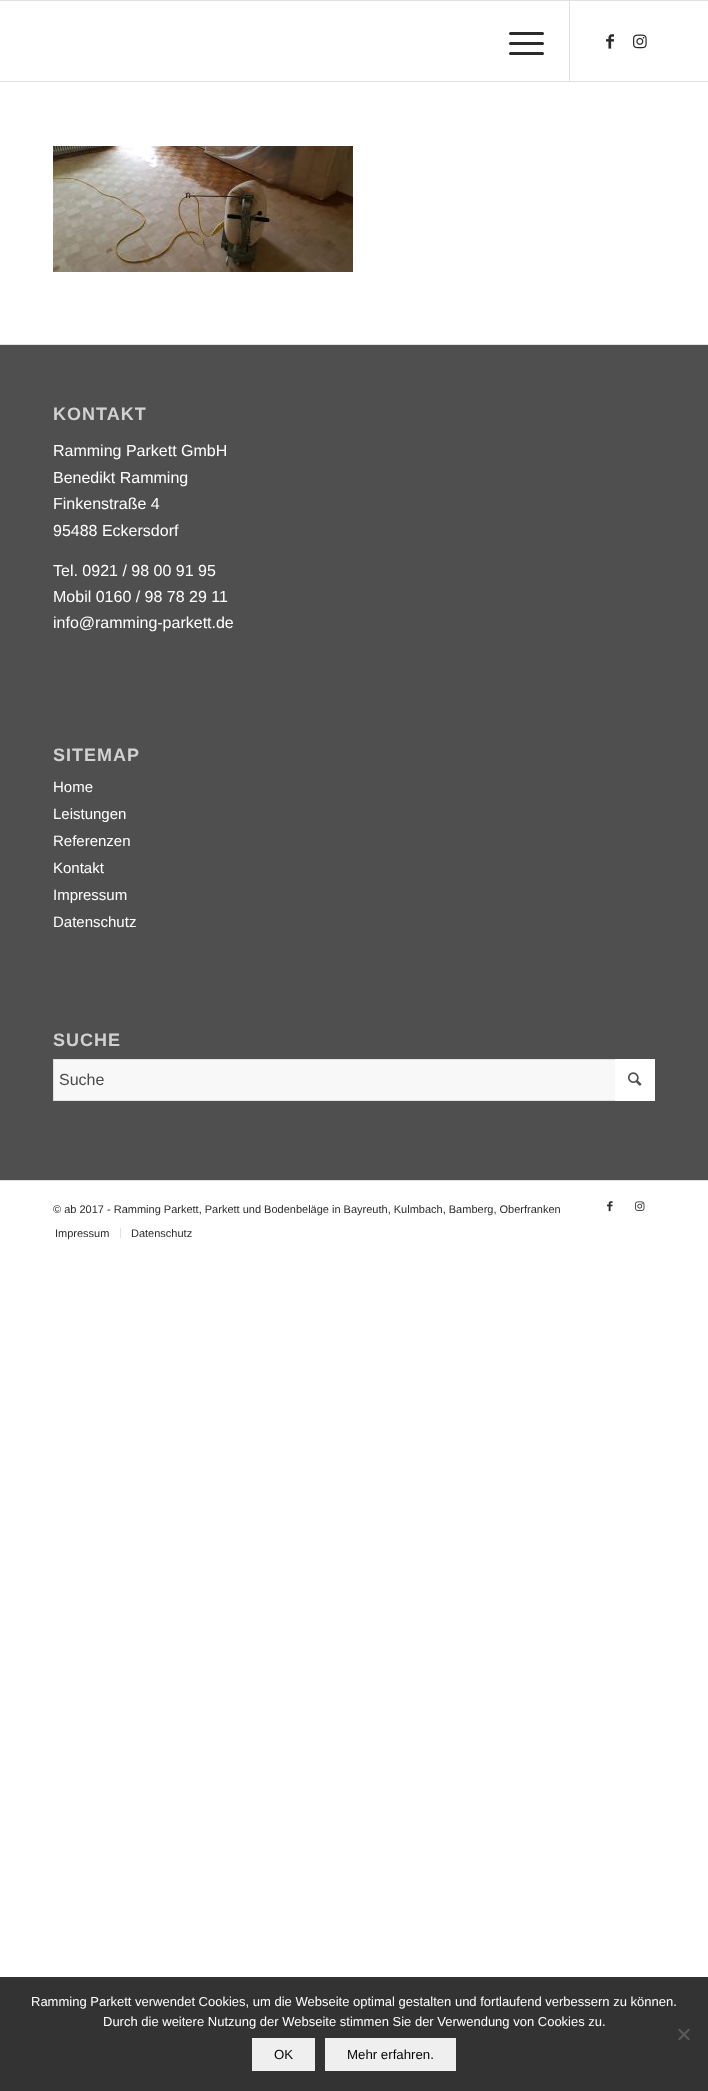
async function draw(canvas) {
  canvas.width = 708
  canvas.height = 2091
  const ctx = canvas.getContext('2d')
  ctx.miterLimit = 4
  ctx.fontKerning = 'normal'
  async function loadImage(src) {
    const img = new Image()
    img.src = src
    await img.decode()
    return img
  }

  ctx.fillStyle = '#fff'
  ctx.fillRect(0, 0, 708, 2091)
  ctx.fillStyle = '#e1e1e1'
  ctx.fillRect(0, 0, 708, 1)
  ctx.fillRect(0, 81, 708, 1)
  ctx.fillRect(569, 1, 1, 80)
  ctx.fillStyle = '#2b2b2b'
  ctx.beginPath()
  ctx.roundRect(509, 42, 35, 3, 1.5)
  ctx.fill()
  ctx.beginPath()
  ctx.roundRect(509, 32, 35, 3, 1.5)
  ctx.fill()
  ctx.beginPath()
  ctx.roundRect(509, 52, 35, 3, 1.5)
  ctx.fill()
  ctx.drawImage(await loadImage('image0.png'), 606, 34, 8, 15)
  ctx.drawImage(await loadImage('image1.png'), 633, 34, 14, 15)
  ctx.drawImage(await loadImage('image2.png'), 53, 146, 300, 126)
  ctx.fillStyle = '#4f4f4f'
  ctx.fillRect(0, 345, 708, 835)
  ctx.fillStyle = '#e1e1e1'
  ctx.fillRect(0, 344, 708, 1)
  ctx.letterSpacing = '1px'
  ctx.font = 'bold 18px Liberation Sans'
  ctx.fillStyle = '#d1d1d1'
  ctx.fillText('KONTAKT', 53, 420)
  ctx.letterSpacing = '0px'
  ctx.font = '16px Liberation Sans'
  ctx.fillStyle = '#fff'
  ctx.fillText('Ramming Parkett GmbH', 53, 456)
  ctx.fillText('Benedikt Ramming', 53, 483)
  ctx.fillText('Finkenstraße 4', 53, 509)
  ctx.fillText('95488 Eckersdorf', 53, 536)
  ctx.fillText('Tel. 0921 / 98 00 91 95', 53, 576)
  ctx.fillText('Mobil 0160 / 98 78 29 11', 53, 602)
  ctx.fillText('info@ramming-parkett.de', 53, 628)
  ctx.letterSpacing = '1px'
  ctx.font = 'bold 18px Liberation Sans'
  ctx.fillStyle = '#d1d1d1'
  ctx.fillText('SITEMAP', 53, 761)
  ctx.letterSpacing = '0px'
  ctx.font = '15px Liberation Sans'
  ctx.fillStyle = '#fff'
  ctx.fillText('Home', 53, 792)
  ctx.fillText('Leistungen', 53, 819)
  ctx.fillText('Referenzen', 53, 846)
  ctx.fillText('Kontakt', 53, 873)
  ctx.fillText('Impressum', 53, 900)
  ctx.fillText('Datenschutz', 53, 927)
  ctx.letterSpacing = '1px'
  ctx.font = 'bold 18px Liberation Sans'
  ctx.fillStyle = '#d1d1d1'
  ctx.fillText('SUCHE', 53, 1046)
  ctx.fillStyle = '#f8f8f8'
  ctx.fillRect(54, 1060, 561, 40)
  ctx.strokeStyle = '#e1e1e1'
  ctx.strokeRect(53.5, 1059.5, 601, 41)
  ctx.letterSpacing = '0px'
  ctx.font = '16px Liberation Sans'
  ctx.fillStyle = '#4a4a4a'
  ctx.fillText('Suche', 59, 1085)
  ctx.fillStyle = '#fff'
  ctx.fillRect(615, 1059, 40, 42)
  ctx.drawImage(await loadImage('image3.png'), 628, 1072, 14, 14)
  ctx.fillStyle = '#e1e1e1'
  ctx.fillRect(0, 1180, 708, 1)
  ctx.font = '11px Liberation Sans'
  ctx.fillStyle = '#2b2b2b'
  ctx.fillText('© ab 2017 - Ramming Parkett, Parkett und Bodenbeläge in Bayreuth, Kulmbach, Bamberg, Oberfranken', 53, 1213)
  ctx.drawImage(await loadImage('image4.png'), 607, 1201, 6, 11)
  ctx.drawImage(await loadImage('image5.png'), 635, 1201, 10, 10)
  ctx.fillText('Impressum', 55, 1237)
  ctx.fillStyle = '#e1e1e1'
  ctx.fillRect(120, 1228, 1, 10)
  ctx.fillStyle = '#2b2b2b'
  ctx.fillText('Datenschutz', 131, 1237)
  ctx.fillStyle = '#333'
  ctx.fillRect(0, 1977, 708, 114)
  ctx.font = '13px Liberation Sans'
  ctx.fillStyle = '#fff'
  ctx.fillText('Ramming Parkett verwendet Cookies, um die Webseite optimal gestalten und fortlaufend verbessern zu können.', 31, 2006)
  ctx.fillText('Durch die weitere Nutzung der Webseite stimmen Sie der Verwendung von Cookies zu.', 103, 2026)
  ctx.fillStyle = '#5a5a5a'
  ctx.beginPath()
  ctx.moveTo(688.5, 2028.5)
  ctx.lineTo(690, 2030)
  ctx.lineTo(679.5, 2040.5)
  ctx.lineTo(678, 2039)
  ctx.closePath()
  ctx.fill()
  ctx.beginPath()
  ctx.moveTo(678, 2030)
  ctx.lineTo(679.5, 2028.5)
  ctx.lineTo(690, 2039)
  ctx.lineTo(688.5, 2040.5)
  ctx.closePath()
  ctx.fill()
  ctx.fillStyle = '#efefef'
  ctx.fillRect(252, 2038, 63, 33)
  ctx.font = '13.25px Liberation Sans'
  ctx.fillStyle = '#000'
  ctx.fillText('OK', 274, 2059)
  ctx.fillStyle = '#efefef'
  ctx.fillRect(325, 2038, 131, 33)
  ctx.fillStyle = '#000'
  ctx.fillText('Mehr erfahren.', 347, 2059)
}

draw(document.querySelector('canvas'))
